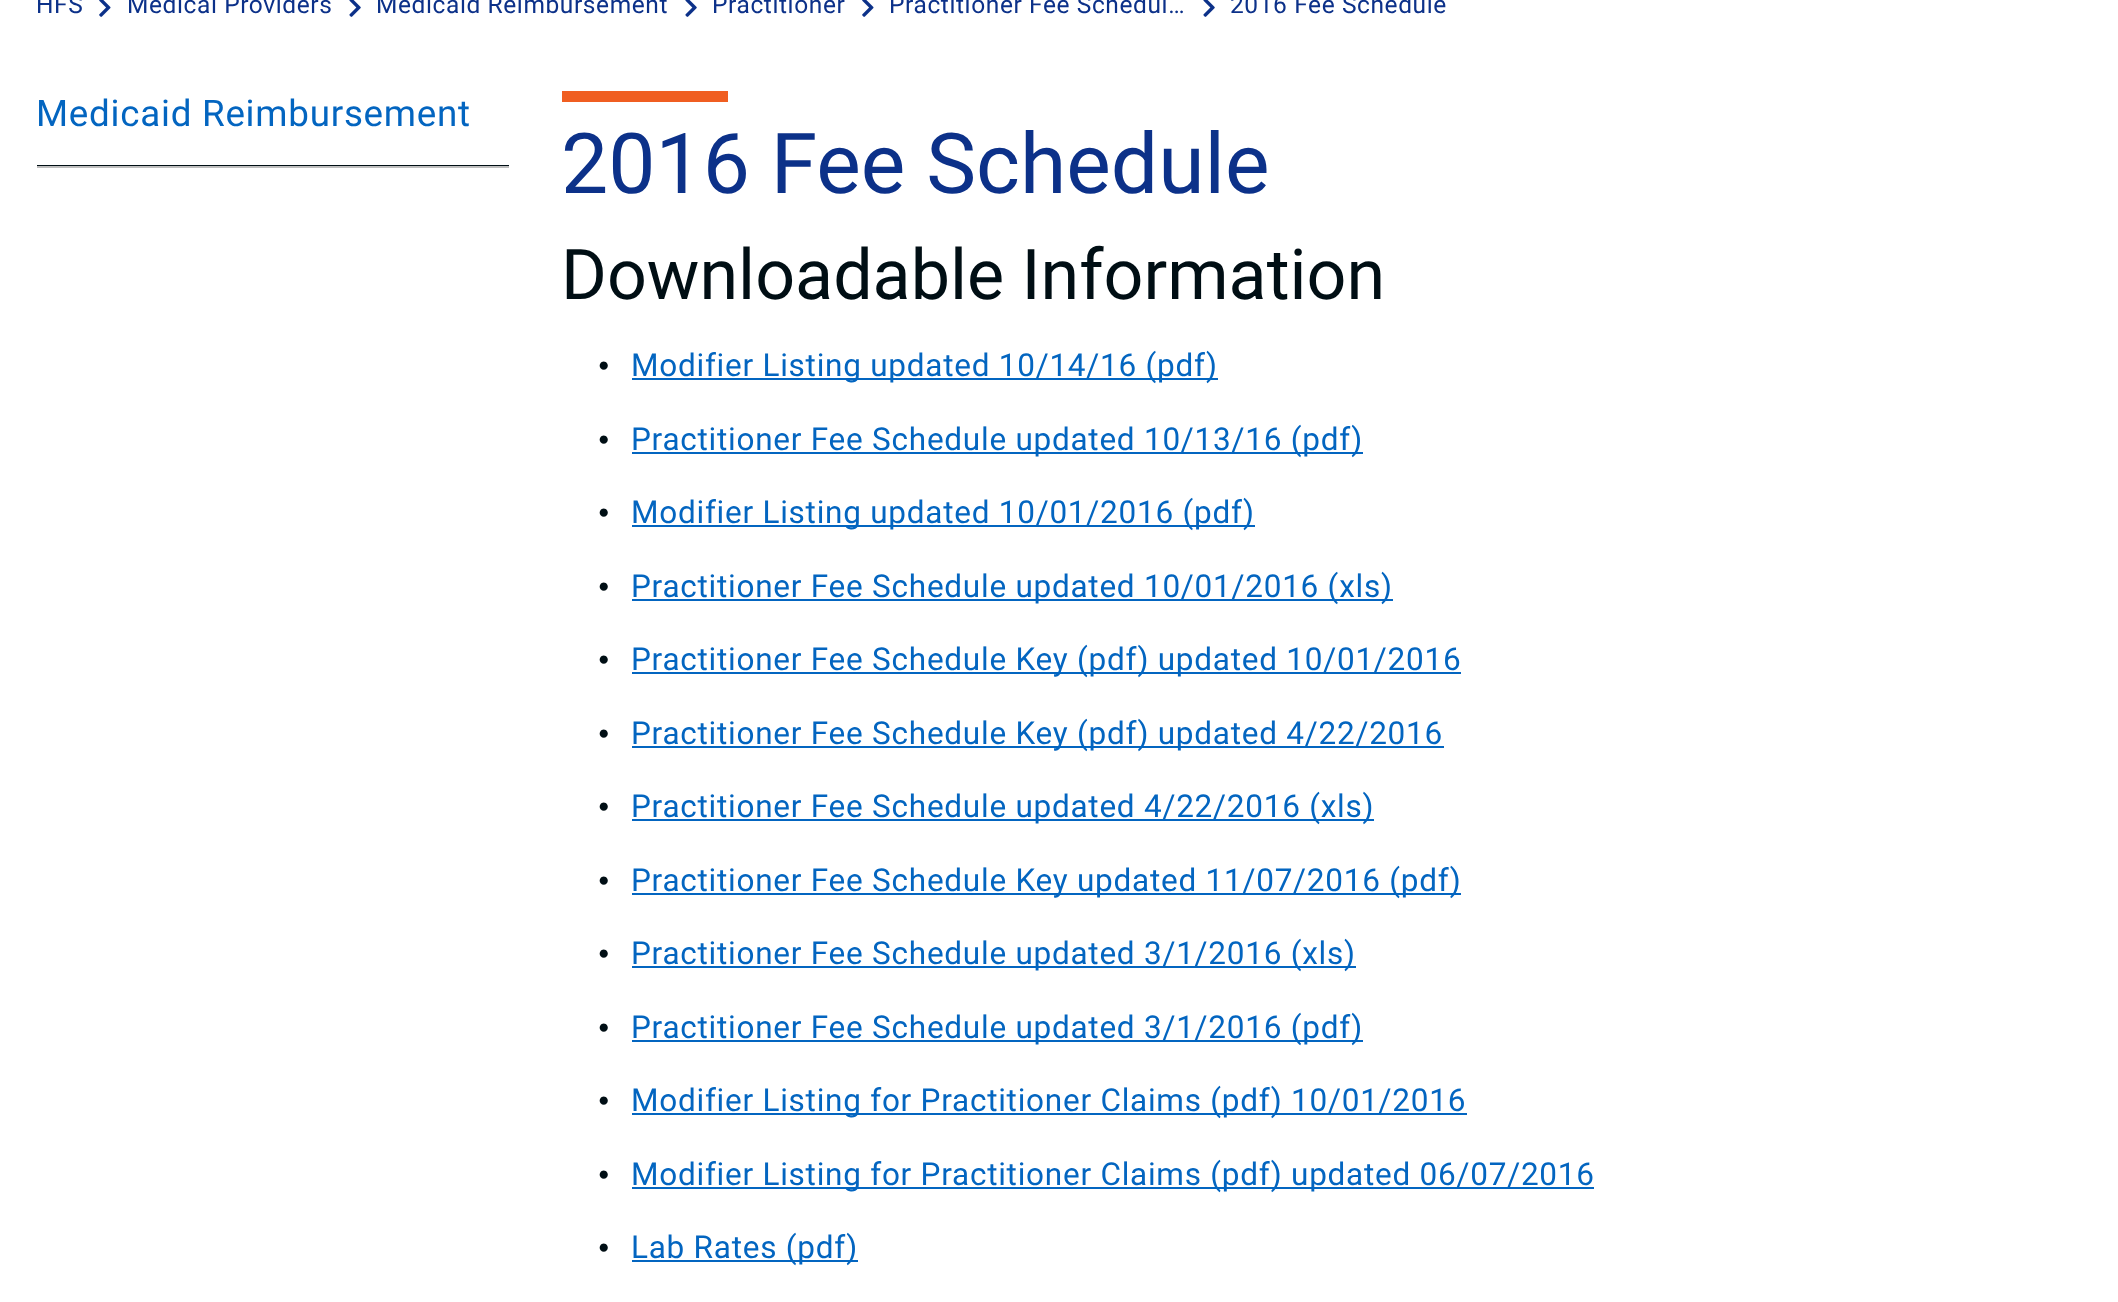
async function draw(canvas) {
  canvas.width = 2118
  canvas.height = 1302
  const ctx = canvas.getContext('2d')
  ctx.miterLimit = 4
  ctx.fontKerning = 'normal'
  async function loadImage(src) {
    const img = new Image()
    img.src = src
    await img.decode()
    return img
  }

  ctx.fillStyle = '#fff'
  ctx.fillRect(0, 0, 2118, 1302)
  ctx.letterSpacing = '0.6px'
  ctx.font = '24.5px Roboto'
  ctx.fillStyle = '#0c3189'
  ctx.fillText('HFS', 36, 13)
  ctx.drawImage(await loadImage('image0.png'), 99, 0, 12, 17)
  ctx.fillText('Medical Providers', 127, 13)
  ctx.drawImage(await loadImage('image1.png'), 349, 0, 12, 17)
  ctx.fillText('Medicaid Reimbursement', 376, 13)
  ctx.drawImage(await loadImage('image1.png'), 685, 0, 12, 17)
  ctx.fillText('Practitioner', 712, 13)
  ctx.drawImage(await loadImage('image0.png'), 862, 0, 12, 17)
  ctx.fillText('Practitioner Fee Schedul…', 889, 13)
  ctx.drawImage(await loadImage('image1.png'), 1203, 0, 12, 17)
  ctx.fillText('2016 Fee Schedule', 1230, 13)
  ctx.letterSpacing = '0.75px'
  ctx.font = '36.75px Roboto'
  ctx.fillStyle = '#0365c0'
  ctx.fillText('Medicaid Reimbursement', 36, 126)
  ctx.fillStyle = '#000e14'
  ctx.fillRect(37, 165, 472, 1)
  ctx.fillStyle = '#bebebe'
  ctx.fillRect(37, 166, 472, 2)
  ctx.fillStyle = '#f05e21'
  ctx.fillRect(562, 91, 166, 11)
  ctx.letterSpacing = '0px'
  ctx.font = '84px Roboto'
  ctx.fillStyle = '#0c3189'
  ctx.fillText('2016 Fee Schedule', 561, 193)
  ctx.font = '70px Roboto'
  ctx.fillStyle = '#000e14'
  ctx.fillText('Downloadable Information', 561, 299)
  ctx.letterSpacing = '0.75px'
  ctx.font = '19px Liberation Sans'
  ctx.fillText('●', 598, 371)
  ctx.fillStyle = '#0365c0'
  ctx.fillRect(632, 378, 586, 2)
  ctx.font = '31.5px Roboto'
  ctx.fillText('Modifier Listing updated 10/14/16 (pdf)', 631, 376)
  ctx.font = '19px Liberation Sans'
  ctx.fillStyle = '#000e14'
  ctx.fillText('●', 598, 445)
  ctx.fillStyle = '#0365c0'
  ctx.fillRect(632, 452, 731, 2)
  ctx.font = '31.5px Roboto'
  ctx.fillText('Practitioner Fee Schedule updated 10/13/16 (pdf)', 631, 450)
  ctx.font = '19px Liberation Sans'
  ctx.fillStyle = '#000e14'
  ctx.fillText('●', 598, 518)
  ctx.fillStyle = '#0365c0'
  ctx.fillRect(632, 525, 623, 2)
  ctx.font = '31.5px Roboto'
  ctx.fillText('Modifier Listing updated 10/01/2016 (pdf)', 631, 523)
  ctx.font = '19px Liberation Sans'
  ctx.fillStyle = '#000e14'
  ctx.fillText('●', 598, 592)
  ctx.fillStyle = '#0365c0'
  ctx.fillRect(632, 599, 761, 2)
  ctx.font = '31.5px Roboto'
  ctx.fillText('Practitioner Fee Schedule updated 10/01/2016 (xls)', 631, 597)
  ctx.font = '19px Liberation Sans'
  ctx.fillStyle = '#000e14'
  ctx.fillText('●', 598, 665)
  ctx.fillStyle = '#0365c0'
  ctx.fillRect(632, 672, 829, 2)
  ctx.font = '31.5px Roboto'
  ctx.fillText('Practitioner Fee Schedule Key (pdf) updated 10/01/2016', 631, 670)
  ctx.font = '19px Liberation Sans'
  ctx.fillStyle = '#000e14'
  ctx.fillText('●', 598, 739)
  ctx.fillStyle = '#0365c0'
  ctx.fillRect(632, 746, 812, 2)
  ctx.font = '31.5px Roboto'
  ctx.fillText('Practitioner Fee Schedule Key (pdf) updated 4/22/2016', 631, 744)
  ctx.font = '19px Liberation Sans'
  ctx.fillStyle = '#000e14'
  ctx.fillText('●', 598, 812)
  ctx.fillStyle = '#0365c0'
  ctx.fillRect(632, 819, 742, 2)
  ctx.font = '31.5px Roboto'
  ctx.fillText('Practitioner Fee Schedule updated 4/22/2016 (xls)', 631, 817)
  ctx.font = '19px Liberation Sans'
  ctx.fillStyle = '#000e14'
  ctx.fillText('●', 598, 886)
  ctx.fillStyle = '#0365c0'
  ctx.fillRect(632, 893, 829, 2)
  ctx.font = '31.5px Roboto'
  ctx.fillText('Practitioner Fee Schedule Key updated 11/07/2016 (pdf)', 631, 891)
  ctx.font = '19px Liberation Sans'
  ctx.fillStyle = '#000e14'
  ctx.fillText('●', 598, 959)
  ctx.fillStyle = '#0365c0'
  ctx.fillRect(632, 966, 724, 2)
  ctx.font = '31.5px Roboto'
  ctx.fillText('Practitioner Fee Schedule updated 3/1/2016 (xls)', 631, 964)
  ctx.font = '19px Liberation Sans'
  ctx.fillStyle = '#000e14'
  ctx.fillText('●', 598, 1033)
  ctx.fillStyle = '#0365c0'
  ctx.fillRect(632, 1040, 731, 2)
  ctx.font = '31.5px Roboto'
  ctx.fillText('Practitioner Fee Schedule updated 3/1/2016 (pdf)', 631, 1038)
  ctx.font = '19px Liberation Sans'
  ctx.fillStyle = '#000e14'
  ctx.fillText('●', 598, 1106)
  ctx.fillStyle = '#0365c0'
  ctx.fillRect(632, 1113, 835, 2)
  ctx.font = '31.5px Roboto'
  ctx.fillText('Modifier Listing for Practitioner Claims (pdf) 10/01/2016', 631, 1111)
  ctx.font = '19px Liberation Sans'
  ctx.fillStyle = '#000e14'
  ctx.fillText('●', 598, 1180)
  ctx.fillStyle = '#0365c0'
  ctx.fillRect(632, 1187, 962, 2)
  ctx.font = '31.5px Roboto'
  ctx.fillText('Modifier Listing for Practitioner Claims (pdf) updated 06/07/2016', 631, 1185)
  ctx.font = '19px Liberation Sans'
  ctx.fillStyle = '#000e14'
  ctx.fillText('●', 598, 1253)
  ctx.fillStyle = '#0365c0'
  ctx.fillRect(632, 1260, 226, 2)
  ctx.font = '31.5px Roboto'
  ctx.fillText('Lab Rates (pdf)', 631, 1258)
}

draw(document.querySelector('canvas'))
